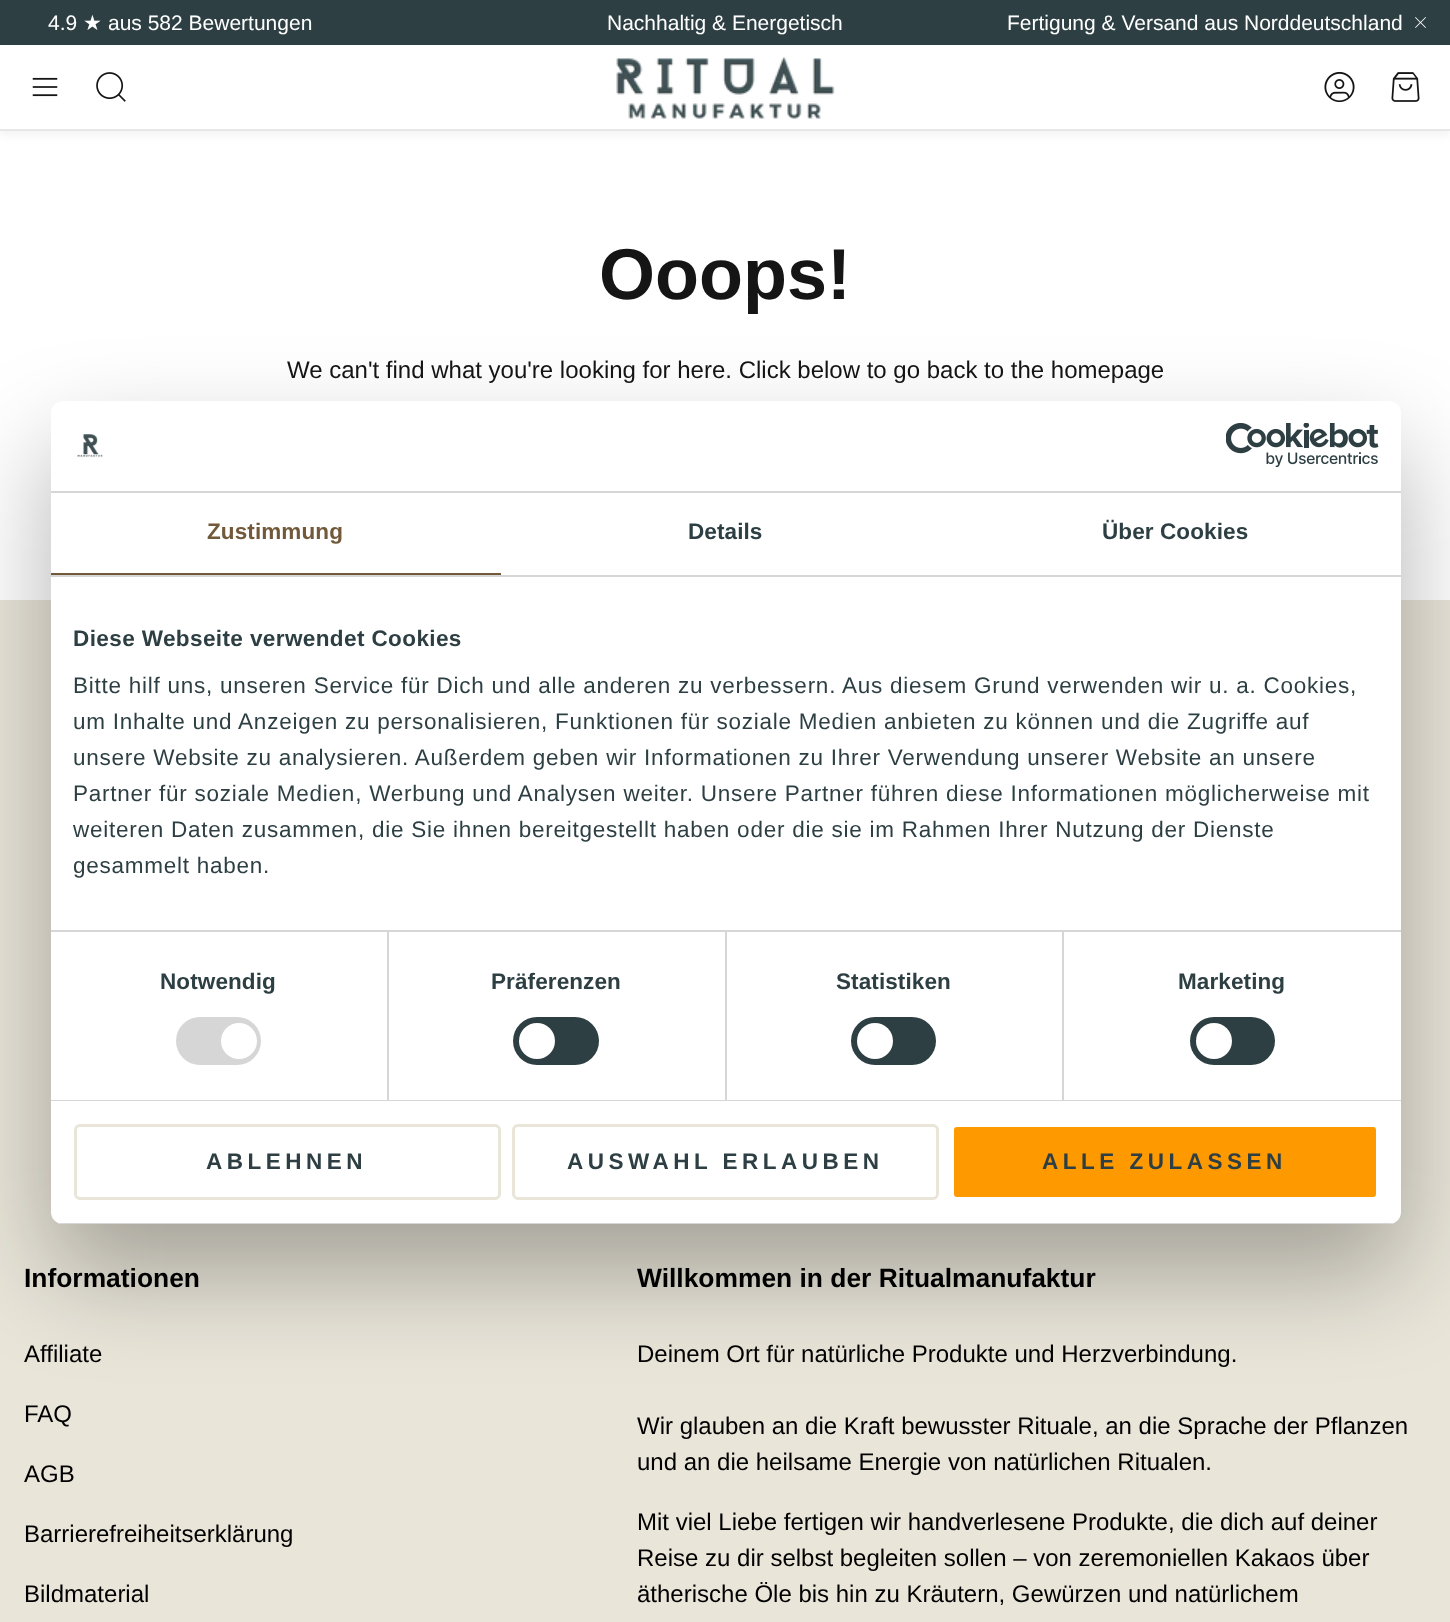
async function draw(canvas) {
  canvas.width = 1450
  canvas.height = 1622
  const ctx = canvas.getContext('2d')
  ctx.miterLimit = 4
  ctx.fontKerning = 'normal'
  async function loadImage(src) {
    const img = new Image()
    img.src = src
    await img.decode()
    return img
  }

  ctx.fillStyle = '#fff'
  ctx.fillRect(0, 0, 1450, 1622)
  ctx.fillStyle = '#2d3f43'
  ctx.fillRect(0, 0, 1450, 45)
  ctx.font = '21px Arimo'
  ctx.fillStyle = '#fff'
  ctx.fillText('4.9', 48, 30)
  ctx.font = '21px DejaVu Sans'
  ctx.fillText('★', 83, 30)
  ctx.font = '21px Arimo'
  ctx.fillText('aus 582 Bewertungen', 108, 30)
  ctx.fillText('Nachhaltig & Energetisch', 607, 30)
  ctx.fillText('Fertigung & Versand aus Norddeutschland', 1007, 30)
  ctx.drawImage(await loadImage('image0.png'), 1415, 17, 11, 11)
  ctx.fillStyle = '#0000000d'
  ctx.filter = 'blur(4.5px)'
  ctx.beginPath()
  ctx.rect(0, 50, 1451, 85)
  ctx.fill()
  ctx.filter = 'none'
  ctx.fillStyle = '#fff'
  ctx.fillRect(0, 46, 1450, 83)
  ctx.fillStyle = '#e7e7e7'
  ctx.fillRect(0, 129, 1450, 2)
  ctx.drawImage(await loadImage('image1.png'), 32, 77, 26, 20)
  ctx.drawImage(await loadImage('image2.png'), 96, 72, 30, 30)
  ctx.drawImage(await loadImage('image3.png'), 616, 56, 219, 63)
  ctx.drawImage(await loadImage('image4.png'), 1324, 71, 31, 32)
  ctx.drawImage(await loadImage('image5.png'), 1391, 72, 29, 30)
  ctx.font = 'bold 72px Arimo'
  ctx.fillStyle = '#151515'
  ctx.fillText('Ooops!', 599, 299)
  ctx.font = '24px Arimo'
  ctx.fillText('We can\'t find what you\'re looking for here. Click below to go back to the homepage', 287, 378)
  ctx.fillStyle = '#e9e5d9'
  ctx.fillRect(0, 600, 1450, 1022)
  ctx.fillStyle = '#0000004d'
  ctx.filter = 'blur(51px)'
  ctx.beginPath()
  ctx.roundRect(51, 449, 1350, 823, 12)
  ctx.fill()
  ctx.filter = 'none'
  ctx.fillStyle = '#fff'
  ctx.beginPath()
  ctx.roundRect(51, 401, 1350, 823, 12)
  ctx.fill()
  ctx.fillStyle = '#d6d6d6'
  ctx.fillRect(51, 491, 1350, 2)
  ctx.drawImage(await loadImage('image6.png'), 77, 434, 26, 24)
  ctx.drawImage(await loadImage('image7.png'), 1226, 423, 153, 45)
  ctx.fillRect(51, 575, 1350, 2)
  ctx.fillStyle = '#715939'
  ctx.fillRect(51, 573, 450, 2)
  ctx.letterSpacing = '0.1px'
  ctx.font = 'bold 22.5px Liberation Sans'
  ctx.fillText('Zustimmung', 207, 539)
  ctx.fillStyle = '#2d3f43'
  ctx.fillText('Details', 688, 539)
  ctx.fillText('Über Cookies', 1102, 539)
  ctx.fillStyle = '#d6d6d6'
  ctx.fillRect(51, 930, 1350, 2)
  ctx.letterSpacing = '0.4px'
  ctx.fillStyle = '#2d3f43'
  ctx.fillText('Diese Webseite verwendet Cookies', 73, 646)
  ctx.letterSpacing = '0.75px'
  ctx.font = '22.5px Liberation Sans'
  ctx.fillText('Bitte hilf uns, unseren Service für Dich und alle anderen zu verbessern. Aus diesem Grund verwenden wir u. a. Cookies,', 73, 693)
  ctx.fillText('um Inhalte und Anzeigen zu personalisieren, Funktionen für soziale Medien anbieten zu können und die Zugriffe auf', 73, 729)
  ctx.fillText('unsere Website zu analysieren. Außerdem geben wir Informationen zu Ihrer Verwendung unserer Website an unsere', 73, 765)
  ctx.fillText('Partner für soziale Medien, Werbung und Analysen weiter. Unsere Partner führen diese Informationen möglicherweise mit', 73, 801)
  ctx.fillText('weiteren Daten zusammen, die Sie ihnen bereitgestellt haben oder die sie im Rahmen Ihrer Nutzung der Dienste', 73, 837)
  ctx.fillText('gesammelt haben.', 73, 873)
  ctx.fillStyle = '#d6d6d6'
  ctx.fillRect(51, 1100, 1350, 1)
  ctx.fillRect(387, 932, 2, 168)
  ctx.letterSpacing = '0.1px'
  ctx.font = 'bold 22.5px Liberation Sans'
  ctx.fillStyle = '#2d3f43'
  ctx.fillText('Notwendig', 160, 989)
  ctx.fillStyle = '#d6d6d6'
  ctx.beginPath()
  ctx.roundRect(176, 1017, 85, 48, 24)
  ctx.fill()
  ctx.fillStyle = '#fff'
  ctx.beginPath()
  ctx.arc(239, 1041, 18, 0, 2 * Math.PI)
  ctx.fill()
  ctx.fillStyle = '#d6d6d6'
  ctx.fillRect(725, 932, 2, 168)
  ctx.fillStyle = '#2d3f43'
  ctx.fillText('Präferenzen', 491, 989)
  ctx.beginPath()
  ctx.roundRect(513, 1017, 86, 48, 24)
  ctx.fill()
  ctx.fillStyle = '#fff'
  ctx.beginPath()
  ctx.arc(537, 1041, 18, 0, 2 * Math.PI)
  ctx.fill()
  ctx.fillStyle = '#d6d6d6'
  ctx.fillRect(1062, 932, 2, 168)
  ctx.fillStyle = '#2d3f43'
  ctx.fillText('Statistiken', 836, 989)
  ctx.beginPath()
  ctx.roundRect(851, 1017, 85, 48, 24)
  ctx.fill()
  ctx.fillStyle = '#fff'
  ctx.beginPath()
  ctx.arc(875, 1041, 18, 0, 2 * Math.PI)
  ctx.fill()
  ctx.fillStyle = '#2d3f43'
  ctx.fillText('Marketing', 1178, 989)
  ctx.beginPath()
  ctx.roundRect(1190, 1017, 85, 48, 24)
  ctx.fill()
  ctx.fillStyle = '#fff'
  ctx.beginPath()
  ctx.arc(1214, 1041, 18, 0, 2 * Math.PI)
  ctx.fill()
  ctx.save()
  ctx.beginPath()
  ctx.roundRect(51, 401, 1350, 823, 12)
  ctx.clip()
  ctx.fillStyle = '#d6d6d6'
  ctx.fillRect(51, 1223, 1350, 1)
  ctx.restore()
  ctx.beginPath()
  ctx.roundRect(75.5, 1125.5, 424, 73, 4.5)
  ctx.strokeStyle = '#e9e5d9'
  ctx.lineWidth = 3
  ctx.stroke()
  ctx.letterSpacing = '4.5px'
  ctx.fillStyle = '#2d3f43'
  ctx.fillText('ABLEHNEN', 206, 1169)
  ctx.beginPath()
  ctx.roundRect(513.5, 1125.5, 424, 73, 4.5)
  ctx.stroke()
  ctx.fillText('AUSWAHL ERLAUBEN', 567, 1169)
  ctx.fillStyle = '#f90'
  ctx.beginPath()
  ctx.roundRect(952.5, 1125.5, 425, 73, 4.5)
  ctx.fill()
  ctx.strokeStyle = '#fff'
  ctx.stroke()
  ctx.fillStyle = '#2d3f43'
  ctx.fillText('ALLE ZULASSEN', 1042, 1169)
  ctx.letterSpacing = '0px'
  ctx.font = 'bold 26.4px Arimo'
  ctx.fillStyle = '#000'
  ctx.fillText('Informationen', 24, 1287)
  ctx.font = '24px Arimo'
  ctx.fillText('Affiliate', 24, 1362)
  ctx.fillText('FAQ', 24, 1422)
  ctx.fillText('AGB', 24, 1482)
  ctx.fillText('Barrierefreiheitserklärung', 24, 1542)
  ctx.fillText('Bildmaterial', 24, 1602)
  ctx.font = 'bold 26.4px Arimo'
  ctx.fillText('Willkommen in der Ritualmanufaktur', 637, 1287)
  ctx.font = '24px Arimo'
  ctx.fillText('Deinem Ort für natürliche Produkte und Herzverbindung.', 637, 1362)
  ctx.fillText('Wir glauben an die Kraft bewusster Rituale, an die Sprache der Pflanzen', 637, 1434)
  ctx.fillText('und an die heilsame Energie von natürlichen Ritualen.', 637, 1470)
  ctx.fillText('Mit viel Liebe fertigen wir handverlesene Produkte, die dich auf deiner', 637, 1530)
  ctx.fillText('Reise zu dir selbst begleiten sollen – von zeremoniellen Kakaos über', 637, 1566)
  ctx.fillText('ätherische Öle bis hin zu Kräutern, Gewürzen und natürlichem', 637, 1602)
}

draw(document.querySelector('canvas'))
